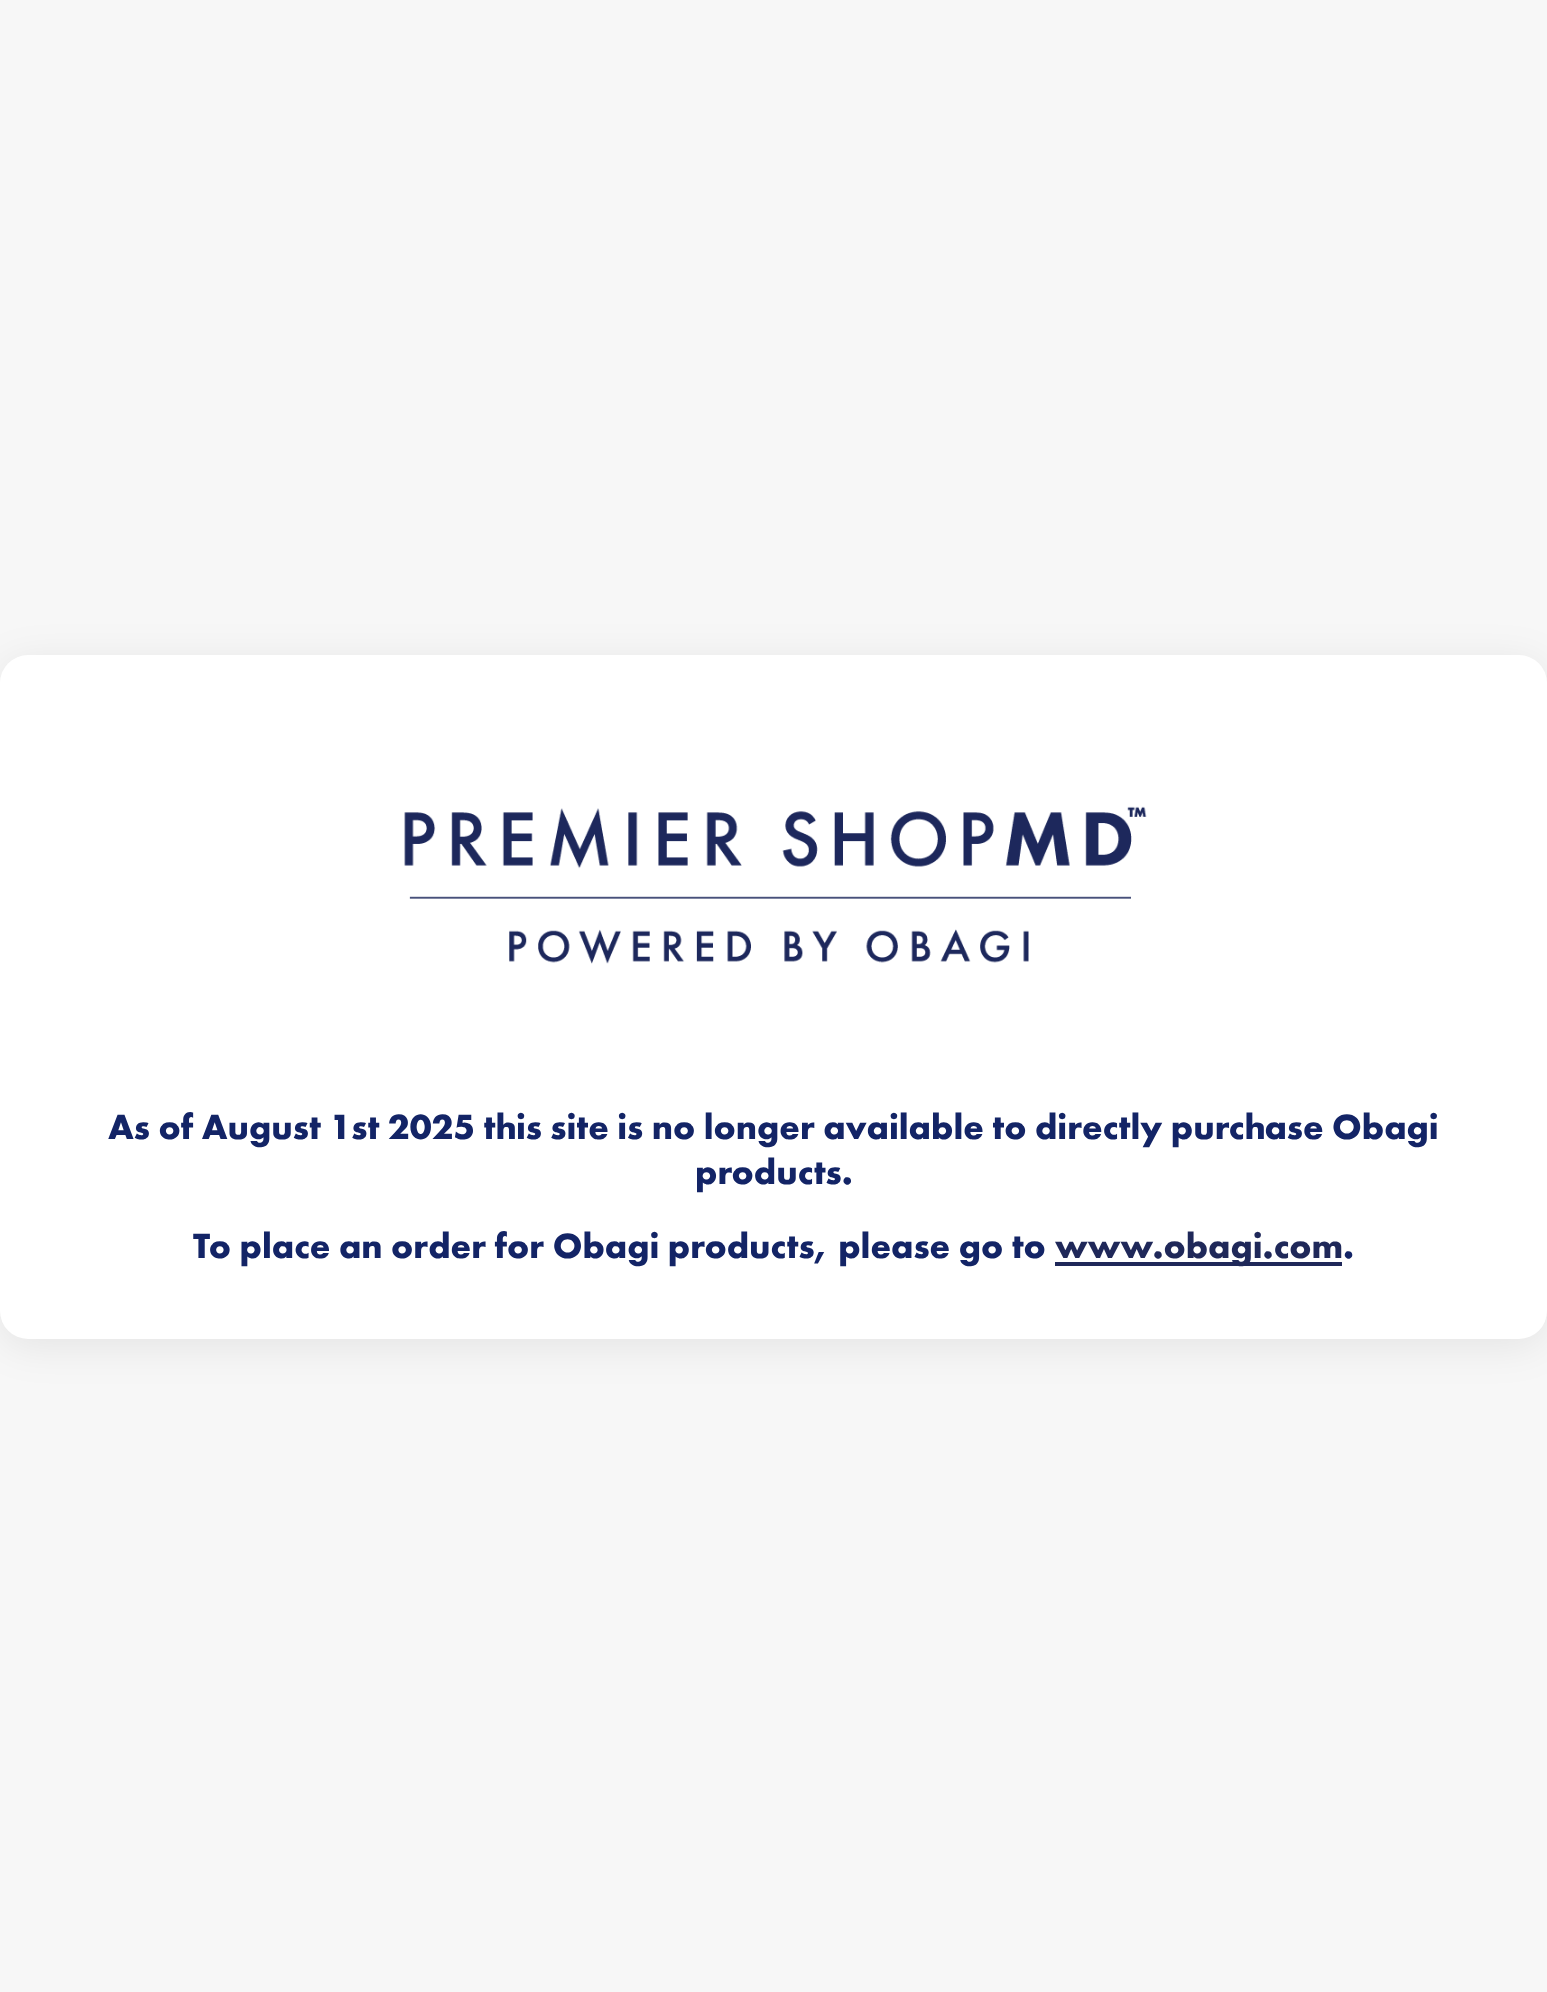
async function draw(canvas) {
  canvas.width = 1547
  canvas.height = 1992
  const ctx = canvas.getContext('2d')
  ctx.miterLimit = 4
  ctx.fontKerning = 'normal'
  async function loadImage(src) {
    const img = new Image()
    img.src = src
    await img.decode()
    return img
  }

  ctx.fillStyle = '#f7f7f7'
  ctx.fillRect(0, 0, 1547, 1992)
  ctx.fillStyle = '#00000014'
  ctx.filter = 'blur(21px)'
  ctx.beginPath()
  ctx.roundRect(0, 662, 1547, 684, 28)
  ctx.fill()
  ctx.filter = 'none'
  ctx.fillStyle = '#fff'
  ctx.beginPath()
  ctx.roundRect(0, 655, 1547, 684, 28)
  ctx.fill()
  ctx.drawImage(await loadImage('image0.png'), 404, 806, 743, 158)
  ctx.font = 'bold 36.4px Futura PT'
  ctx.fillStyle = '#132466'
  ctx.fillText('As of August 1st 2025 this site is no longer available to directly purchase Obagi', 108, 1139)
  ctx.fillText('products.', 695, 1184)
  ctx.fillText('To place an order for Obagi products, please go to', 193, 1258)
  ctx.fillStyle = '#1f2859'
  ctx.fillRect(1055, 1262, 287, 4)
  ctx.fillText('www.obagi.com', 1055, 1258)
  ctx.fillStyle = '#132466'
  ctx.fillText('.', 1343, 1258)
}

draw(document.querySelector('canvas'))
